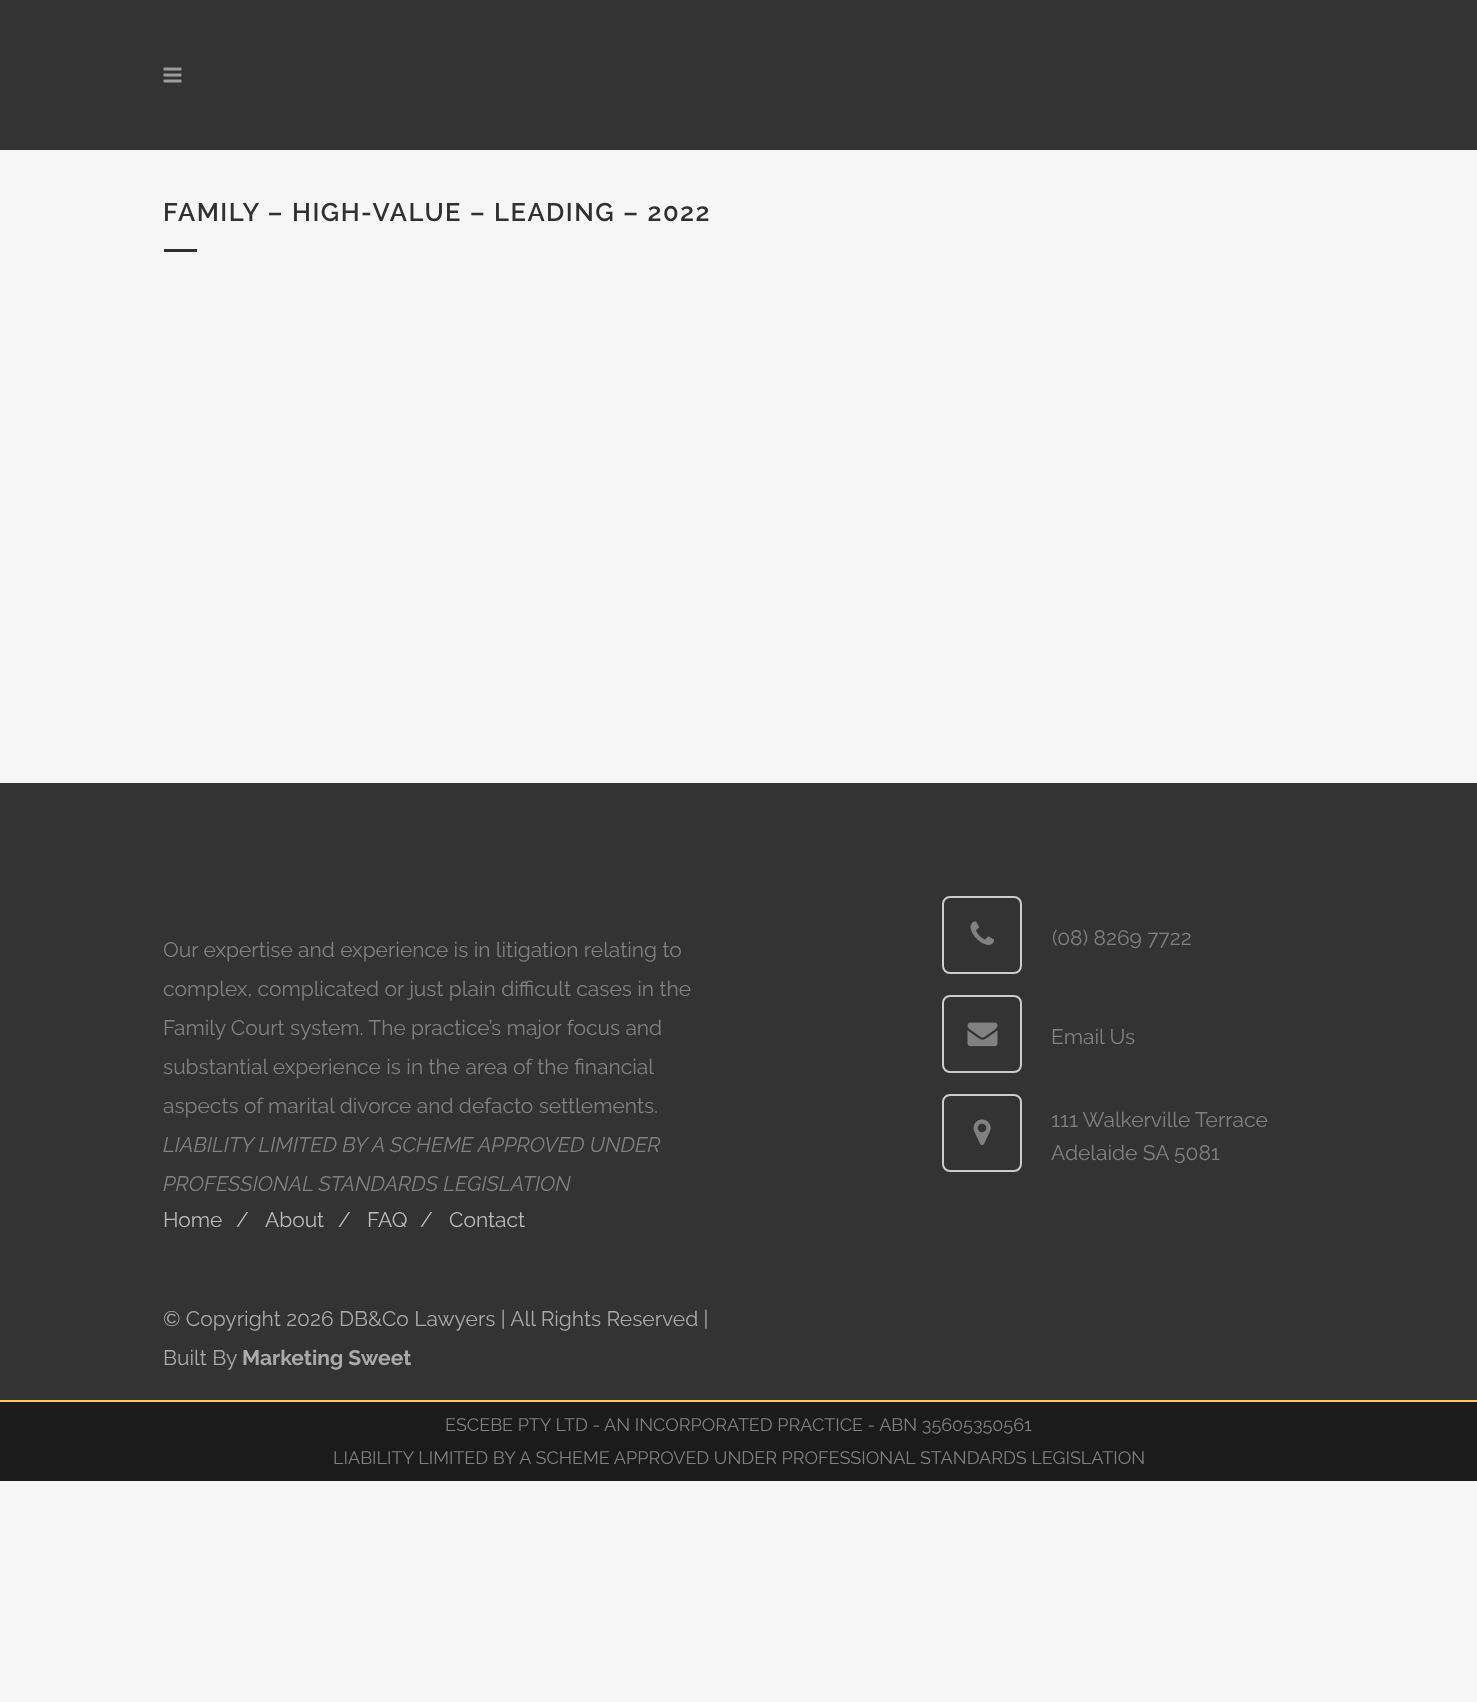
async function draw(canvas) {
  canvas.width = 1477
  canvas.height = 1702
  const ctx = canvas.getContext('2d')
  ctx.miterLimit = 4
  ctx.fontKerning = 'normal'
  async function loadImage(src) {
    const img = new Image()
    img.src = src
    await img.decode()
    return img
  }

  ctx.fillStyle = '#f6f6f6'
  ctx.fillRect(0, 0, 1477, 1702)
  ctx.fillStyle = '#333'
  ctx.fillRect(0, 0, 1477, 150)
  ctx.drawImage(await loadImage('image0.png'), 163, 67, 19, 16)
  ctx.letterSpacing = '1.5px'
  ctx.font = '600 25.5px Raleway'
  ctx.fillStyle = '#303030'
  ctx.fillText('FAMILY – HIGH-VALUE – LEADING – 2022', 163, 221)
  ctx.fillRect(164, 249, 33, 3)
  ctx.fillStyle = '#333'
  ctx.fillRect(0, 783, 1477, 617)
  ctx.letterSpacing = '0px'
  ctx.font = '21px Raleway'
  ctx.fillStyle = '#818181'
  ctx.fillText('Our expertise and experience is in litigation relating to', 163, 957)
  ctx.fillText('complex, complicated or just plain difficult cases in the', 163, 996)
  ctx.fillText('Family Court system. The practice’s major focus and', 163, 1035)
  ctx.fillText('substantial experience is in the area of the financial', 163, 1074)
  ctx.fillText('aspects of marital divorce and defacto settlements.', 163, 1113)
  ctx.font = 'italic 21px Raleway'
  ctx.fillText('LIABILITY LIMITED BY A SCHEME APPROVED UNDER', 163, 1152)
  ctx.fillText('PROFESSIONAL STANDARDS LEGISLATION', 163, 1191)
  ctx.font = '21px Raleway'
  ctx.fillStyle = '#bbb'
  ctx.fillText('Home', 163, 1227)
  ctx.fillText('/', 236, 1227)
  ctx.fillText('About', 265, 1227)
  ctx.fillText('/', 338, 1227)
  ctx.fillText('FAQ', 367, 1227)
  ctx.fillText('/', 420, 1227)
  ctx.fillText('Contact', 449, 1227)
  ctx.fillStyle = '#aaa'
  ctx.fillText('© Copyright 2026 DB&Co Lawyers | All Rights Reserved |', 163, 1326)
  ctx.fillText('Built By', 163, 1365)
  ctx.font = 'bold 21px Raleway'
  ctx.fillText('Marketing Sweet', 242, 1365)
  ctx.beginPath()
  ctx.roundRect(943, 897, 78, 76, 7)
  ctx.strokeStyle = '#ccc'
  ctx.lineWidth = 2
  ctx.stroke()
  ctx.drawImage(await loadImage('image1.png'), 970, 921, 24, 24)
  ctx.font = '21px Raleway'
  ctx.fillStyle = '#818181'
  ctx.fillText('(08) 8269 7722', 1052, 945)
  ctx.beginPath()
  ctx.roundRect(943, 996, 78, 76, 7)
  ctx.stroke()
  ctx.drawImage(await loadImage('image2.png'), 967, 1022, 31, 25)
  ctx.fillText('Email Us', 1051, 1044)
  ctx.beginPath()
  ctx.roundRect(943, 1095, 78, 76, 7)
  ctx.stroke()
  ctx.drawImage(await loadImage('image3.png'), 973, 1119, 18, 27)
  ctx.fillText('111 Walkerville Terrace', 1051, 1127)
  ctx.fillText('Adelaide SA 5081', 1051, 1160)
  ctx.fillStyle = '#1b1b1b'
  ctx.fillRect(0, 1402, 1477, 79)
  ctx.fillStyle = '#ffcb65'
  ctx.fillRect(0, 1400, 1477, 2)
  ctx.font = '18px Raleway'
  ctx.fillStyle = '#818181'
  ctx.fillText('ESCEBE PTY LTD - AN INCORPORATED PRACTICE - ABN 35605350561', 445, 1431)
  ctx.fillText('LIABILITY LIMITED BY A SCHEME APPROVED UNDER PROFESSIONAL STANDARDS LEGISLATION', 333, 1464)
}

draw(document.querySelector('canvas'))
